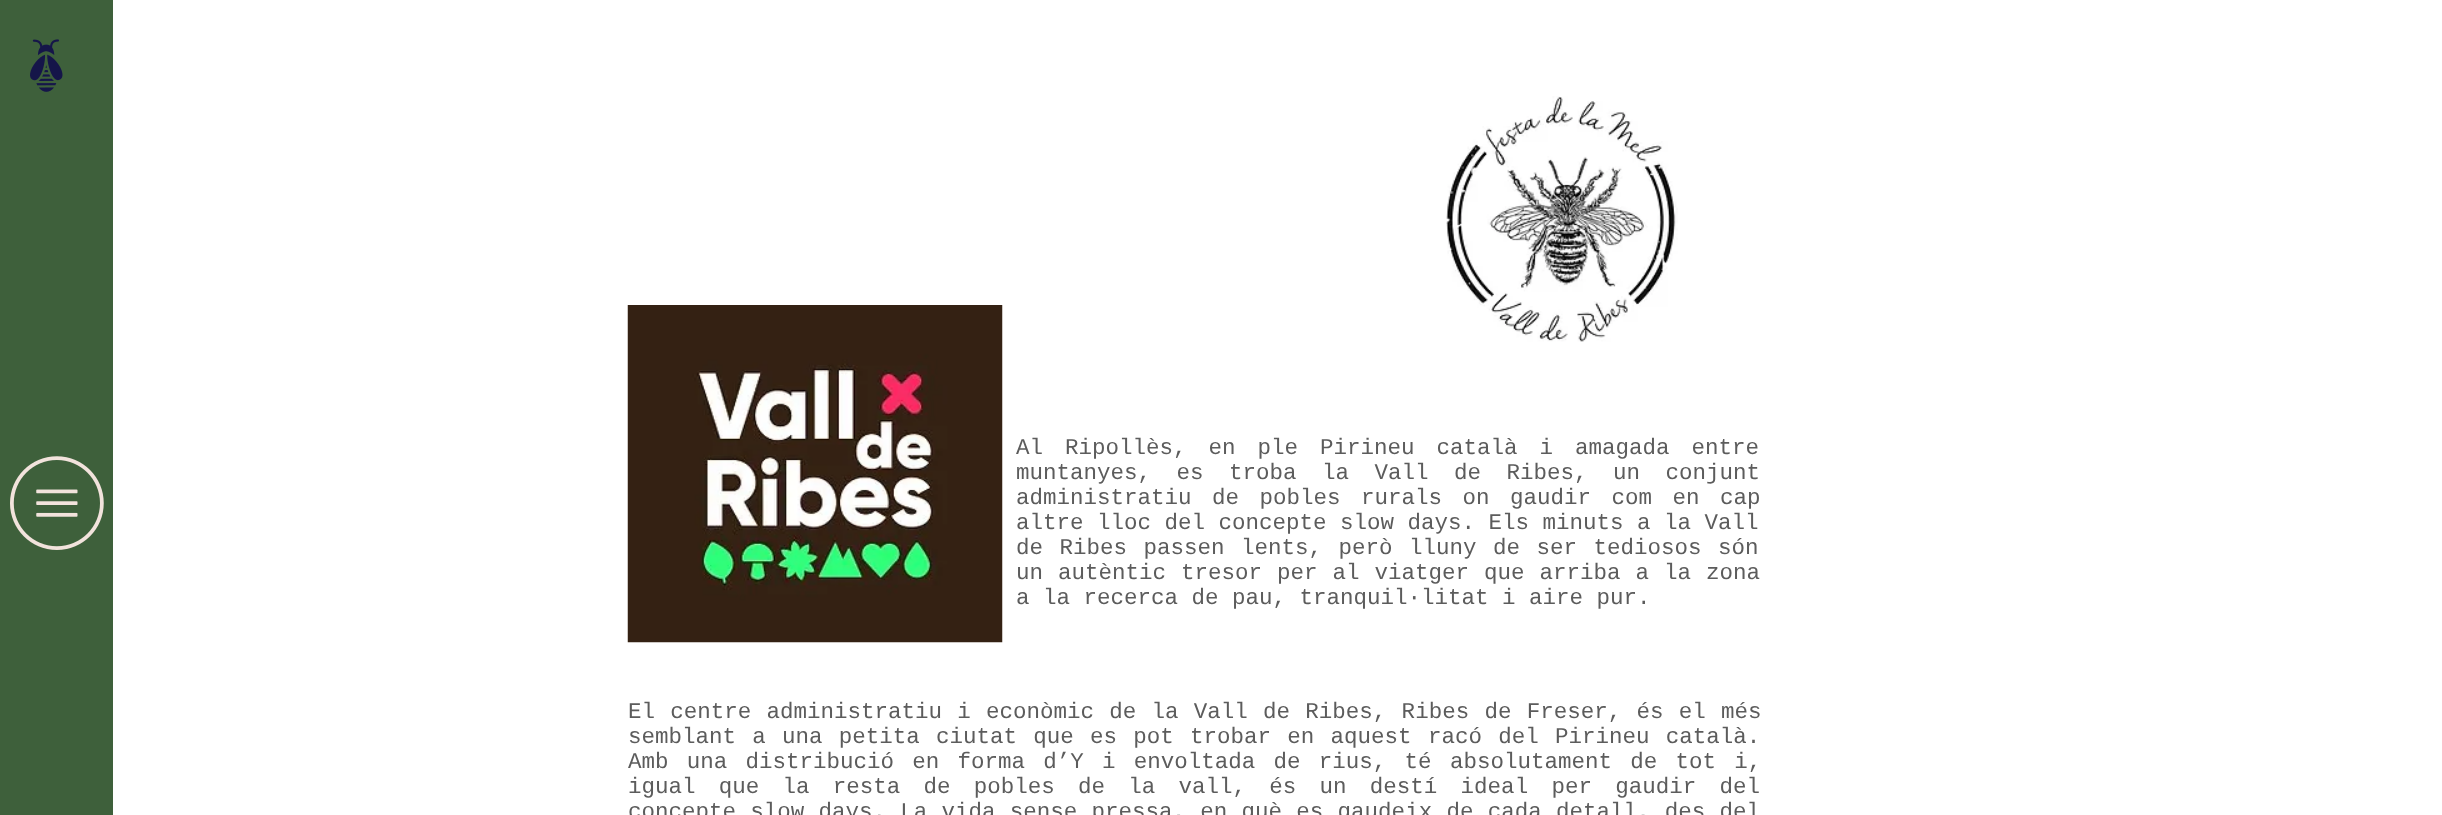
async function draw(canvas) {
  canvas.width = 2442
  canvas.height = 815
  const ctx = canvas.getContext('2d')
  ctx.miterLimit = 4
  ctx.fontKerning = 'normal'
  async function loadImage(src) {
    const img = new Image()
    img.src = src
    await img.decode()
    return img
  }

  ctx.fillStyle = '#fff'
  ctx.fillRect(0, 0, 2442, 815)
  ctx.fillStyle = '#3e603b'
  ctx.fillRect(0, 0, 113, 815)
  ctx.drawImage(await loadImage('image0.png'), 30, 39, 33, 53)
  ctx.drawImage(await loadImage('image1.png'), 10, 456, 94, 94)
  ctx.drawImage(await loadImage('image2.png'), 1446, 96, 232, 246)
  ctx.drawImage(await loadImage('image3.png'), 627, 305, 376, 338)
  ctx.wordSpacing = '8.5px'
  ctx.font = '22.5px Liberation Mono'
  ctx.fillStyle = '#5c5c5c'
  ctx.fillText('Al Ripollès, en ple Pirineu català i amagada entre', 1016, 454)
  ctx.wordSpacing = '12px'
  ctx.fillText('muntanyes, es troba la Vall de Ribes, un conjunt', 1016, 479)
  ctx.wordSpacing = '7px'
  ctx.fillText('administratiu de pobles rurals on gaudir com en cap', 1016, 504)
  ctx.wordSpacing = '0px'
  ctx.fillText('altre lloc del concepte slow days. Els minuts a la Vall', 1016, 529)
  ctx.wordSpacing = '3px'
  ctx.fillText('de Ribes passen lents, però lluny de ser tediosos són', 1016, 554)
  ctx.wordSpacing = '1.5px'
  ctx.fillText('un autèntic tresor per al viatger que arriba a la zona', 1016, 579)
  ctx.wordSpacing = '0px'
  ctx.fillText('a la recerca de pau, tranquil·litat i aire pur.', 1016, 604)
  ctx.wordSpacing = '1.75px'
  ctx.fillText('El centre administratiu i econòmic de la Vall de Ribes, Ribes de Freser, és el més', 628, 718)
  ctx.wordSpacing = '2.75px'
  ctx.fillText('semblant a una petita ciutat que es pot trobar en aquest racó del Pirineu català.', 628, 743)
  ctx.wordSpacing = '4.75px'
  ctx.fillText('Amb una distribució en forma d’Y i envoltada de rius, té absolutament de tot i,', 628, 768)
  ctx.wordSpacing = '9.75px'
  ctx.fillText('igual que la resta de pobles de la vall, és un destí ideal per gaudir del', 628, 793)
  ctx.wordSpacing = '0.75px'
  ctx.fillText('concepte slow days. La vida sense pressa, en què es gaudeix de cada detall, des del', 628, 818)
}

draw(document.querySelector('canvas'))
